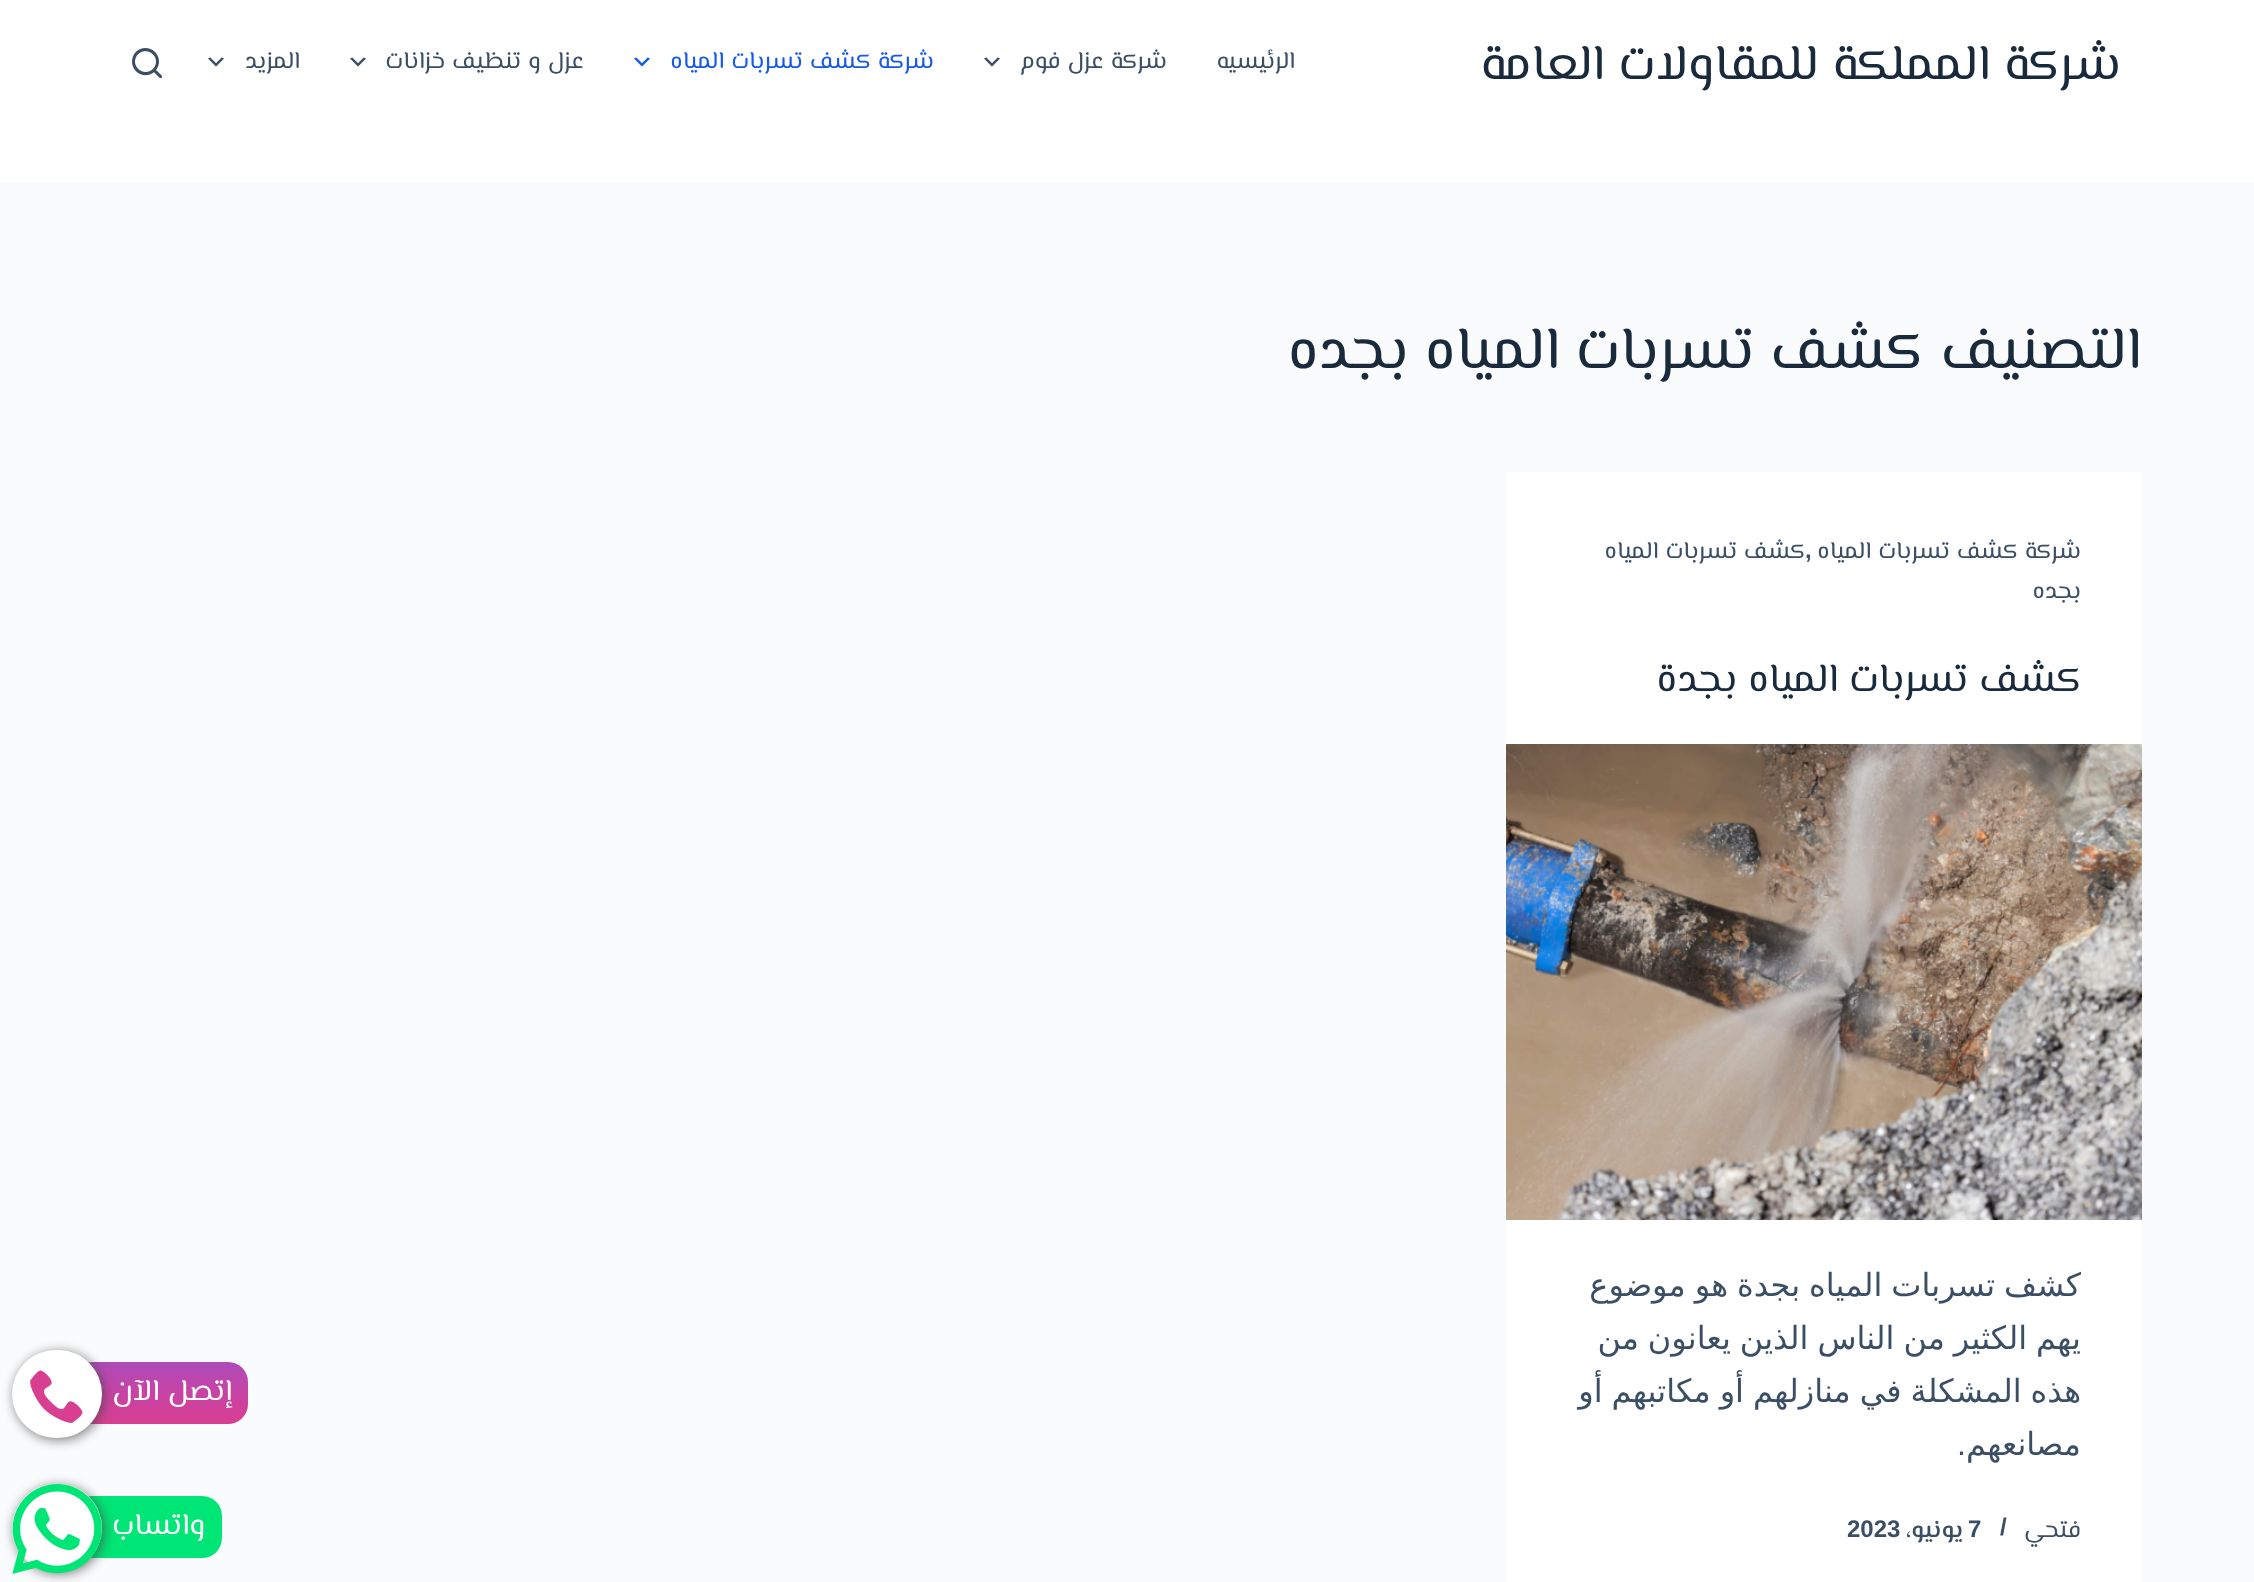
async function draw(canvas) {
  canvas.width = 2254
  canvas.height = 1582
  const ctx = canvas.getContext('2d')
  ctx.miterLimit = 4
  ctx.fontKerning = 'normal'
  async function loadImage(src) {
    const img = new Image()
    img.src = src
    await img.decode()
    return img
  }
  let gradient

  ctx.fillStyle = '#fafbfc'
  ctx.fillRect(0, 0, 2254, 1582)
  ctx.fillStyle = '#fff'
  ctx.fillRect(0, 0, 2254, 182)
  ctx.wordSpacing = '1.5px'
  ctx.direction = 'rtl'
  ctx.font = '50px El Messiri'
  ctx.fillStyle = '#192a3d'
  ctx.fillText('شركة المملكة للمقاولات العامة', 2121, 79)
  ctx.wordSpacing = '0px'
  ctx.font = '24px El Messiri'
  ctx.fillStyle = '#3a4f66'
  ctx.fillText('الرئيسيه', 1295, 68)
  ctx.wordSpacing = '1px'
  ctx.fillText('شركة عزل فوم', 1167, 68)
  ctx.drawImage(await loadImage('image0.png'), 984, 57, 16, 10)
  ctx.fillStyle = '#1559ed'
  ctx.fillText('شركة كشف تسربات المياه', 934, 68)
  ctx.drawImage(await loadImage('image1.png'), 634, 57, 16, 10)
  ctx.fillStyle = '#3a4f66'
  ctx.fillText('عزل و تنظيف خزانات', 584, 68)
  ctx.drawImage(await loadImage('image0.png'), 350, 57, 16, 10)
  ctx.wordSpacing = '0px'
  ctx.fillText('المزيد', 300, 68)
  ctx.drawImage(await loadImage('image0.png'), 208, 57, 16, 10)
  ctx.drawImage(await loadImage('image2.png'), 132, 48, 30, 30)
  ctx.font = '60px El Messiri'
  ctx.fillStyle = '#192a3d'
  ctx.fillText('التصنيف', 2141, 368)
  ctx.wordSpacing = '1px'
  ctx.fillText('كشف تسربات المياه بجده', 1923, 368)
  ctx.fillStyle = '#fff'
  ctx.fillRect(1506, 472, 636, 1110)
  ctx.font = '24px El Messiri'
  ctx.fillStyle = '#3a4f66'
  ctx.fillText('شركة كشف تسربات المياه', 2081, 558)
  ctx.wordSpacing = '0px'
  ctx.direction = 'ltr'
  ctx.font = 'bold 24px Liberation Sans'
  ctx.fillText(',', 1805, 558)
  ctx.wordSpacing = '1px'
  ctx.direction = 'rtl'
  ctx.font = '24px El Messiri'
  ctx.fillText('كشف تسربات المياه', 1805, 558)
  ctx.wordSpacing = '0px'
  ctx.fillText('بجده', 2081, 598)
  ctx.wordSpacing = '1px'
  ctx.font = '40px El Messiri'
  ctx.fillStyle = '#192a3d'
  ctx.fillText('كشف تسربات المياه بجدة', 2081, 691)
  ctx.drawImage(await loadImage('image3.png'), 1506, 744, 636, 476)
  ctx.wordSpacing = '-1.25px'
  ctx.font = '32px DejaVu Sans'
  ctx.fillStyle = '#3a4f66'
  ctx.fillText('كشف تسربات المياه بجدة هو موضوع', 2081, 1296)
  ctx.fillText('يهم الكثير من الناس الذين يعانون من', 2081, 1349)
  ctx.fillText('هذه المشكلة في منازلهم أو مكاتبهم أو', 2081, 1402)
  ctx.wordSpacing = '0px'
  ctx.fillText('مصانعهم', 2081, 1455)
  ctx.font = '32px Liberation Sans'
  ctx.fillText('.', 1966, 1455)
  ctx.font = '24px El Messiri'
  ctx.fillText('فتحي', 2081, 1537)
  ctx.direction = 'ltr'
  ctx.font = 'bold 24px Liberation Sans'
  ctx.fillText('/', 2000, 1535)
  ctx.fillText('7', 1968, 1537)
  ctx.direction = 'rtl'
  ctx.font = '600 24px El Messiri'
  ctx.fillText('يونيو،', 1963, 1537)
  ctx.direction = 'ltr'
  ctx.font = 'bold 24px Liberation Sans'
  ctx.fillText('2023', 1847, 1537)
  gradient = ctx.createLinearGradient(160, 1424, 160, 1362)
  gradient.addColorStop(0, '#d83f91')
  gradient.addColorStop(0.25, '#d0409b')
  gradient.addColorStop(0.5, '#c743a5')
  gradient.addColorStop(0.75, '#bb47af')
  gradient.addColorStop(1, '#ae4bb8')
  ctx.fillStyle = gradient
  ctx.beginPath()
  ctx.roundRect(72, 1362, 176, 62, 20)
  ctx.fill()
  ctx.wordSpacing = '1px'
  ctx.direction = 'rtl'
  ctx.font = '30px El Messiri'
  ctx.fillStyle = '#fff'
  ctx.fillText('إتصل الآن', 232, 1400)
  ctx.fillStyle = '#444444b5'
  ctx.filter = 'blur(6px)'
  ctx.beginPath()
  ctx.roundRect(14, 1352, 90, 88, 44)
  ctx.fill()
  ctx.filter = 'none'
  ctx.fillStyle = '#fff'
  ctx.beginPath()
  ctx.roundRect(12, 1350, 90, 88, 44)
  ctx.fill()
  ctx.drawImage(await loadImage('image4.png'), 30, 1370, 53, 53)
  ctx.fillStyle = '#00e676'
  ctx.beginPath()
  ctx.roundRect(72, 1496, 150, 62, 20)
  ctx.fill()
  ctx.wordSpacing = '0px'
  ctx.fillStyle = '#fff'
  ctx.fillText('واتساب', 205, 1534)
  ctx.fillStyle = '#444444b5'
  ctx.filter = 'blur(6px)'
  ctx.beginPath()
  ctx.roundRect(14, 1486, 90, 88, 44)
  ctx.fill()
  ctx.filter = 'none'
  ctx.fillStyle = '#fff'
  ctx.beginPath()
  ctx.roundRect(12, 1484, 90, 88, 44)
  ctx.fill()
  ctx.drawImage(await loadImage('image5.png'), 12, 1484, 90, 90)
}

draw(document.querySelector('canvas'))
